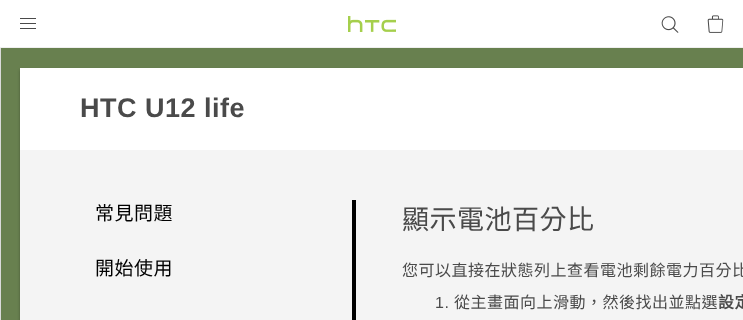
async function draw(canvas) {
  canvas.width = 743
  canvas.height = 320
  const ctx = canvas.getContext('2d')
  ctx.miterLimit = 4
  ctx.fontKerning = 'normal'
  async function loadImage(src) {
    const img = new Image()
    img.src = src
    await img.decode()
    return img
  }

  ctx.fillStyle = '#fff'
  ctx.fillRect(0, 0, 743, 320)
  ctx.fillStyle = '#efefef'
  ctx.fillRect(0, 47, 743, 1)
  ctx.fillStyle = '#4a4a4a'
  ctx.fillRect(20, 23, 16, 1)
  ctx.fillRect(20, 18, 16, 1)
  ctx.fillRect(20, 28, 16, 1)
  ctx.drawImage(await loadImage('image0.png'), 348, 16, 48, 16)
  ctx.drawImage(await loadImage('image1.png'), 661, 16, 18, 17)
  ctx.drawImage(await loadImage('image2.png'), 707, 15, 17, 18)
  ctx.fillStyle = '#dadada'
  ctx.fillRect(0, 48, 1, 272)
  ctx.fillStyle = '#68804f'
  ctx.fillRect(1, 48, 742, 272)
  ctx.fillStyle = '#0000004d'
  ctx.filter = 'blur(1.5px)'
  ctx.beginPath()
  ctx.rect(20, 70, 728, 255)
  ctx.fill()
  ctx.filter = 'none'
  ctx.fillStyle = '#fff'
  ctx.fillRect(20, 68, 723, 82)
  ctx.letterSpacing = '0.5px'
  ctx.font = 'bold 27px Liberation Sans'
  ctx.fillStyle = '#4a4a4a'
  ctx.fillText('HTC U12 life', 80, 117)
  ctx.fillStyle = '#f4f4f4'
  ctx.fillRect(20, 150, 723, 170)
  ctx.font = '19px Noto Sans CJK TC'
  ctx.fillStyle = '#000'
  ctx.fillText('常見問題', 95, 220)
  ctx.fillText('開始使用', 95, 275)
  ctx.fillRect(352, 200, 4, 120)
  ctx.font = '27px Noto Sans CJK TC'
  ctx.fillStyle = '#4a4a4a'
  ctx.fillText('顯示電池百分比', 402, 229)
  ctx.font = '16px Noto Sans CJK TC'
  ctx.fillText('您可以直接在狀態列上查看電池剩餘電力百分比', 402, 276)
  ctx.font = '16px Liberation Sans'
  ctx.fillText('1.', 435, 308)
  ctx.font = '16px Noto Sans CJK TC'
  ctx.fillText('從主畫面向上滑動，然後找出並點選', 454, 308)
  ctx.font = 'bold 16px Noto Sans CJK TC'
  ctx.fillText('設定', 718, 308)
}

draw(document.querySelector('canvas'))
